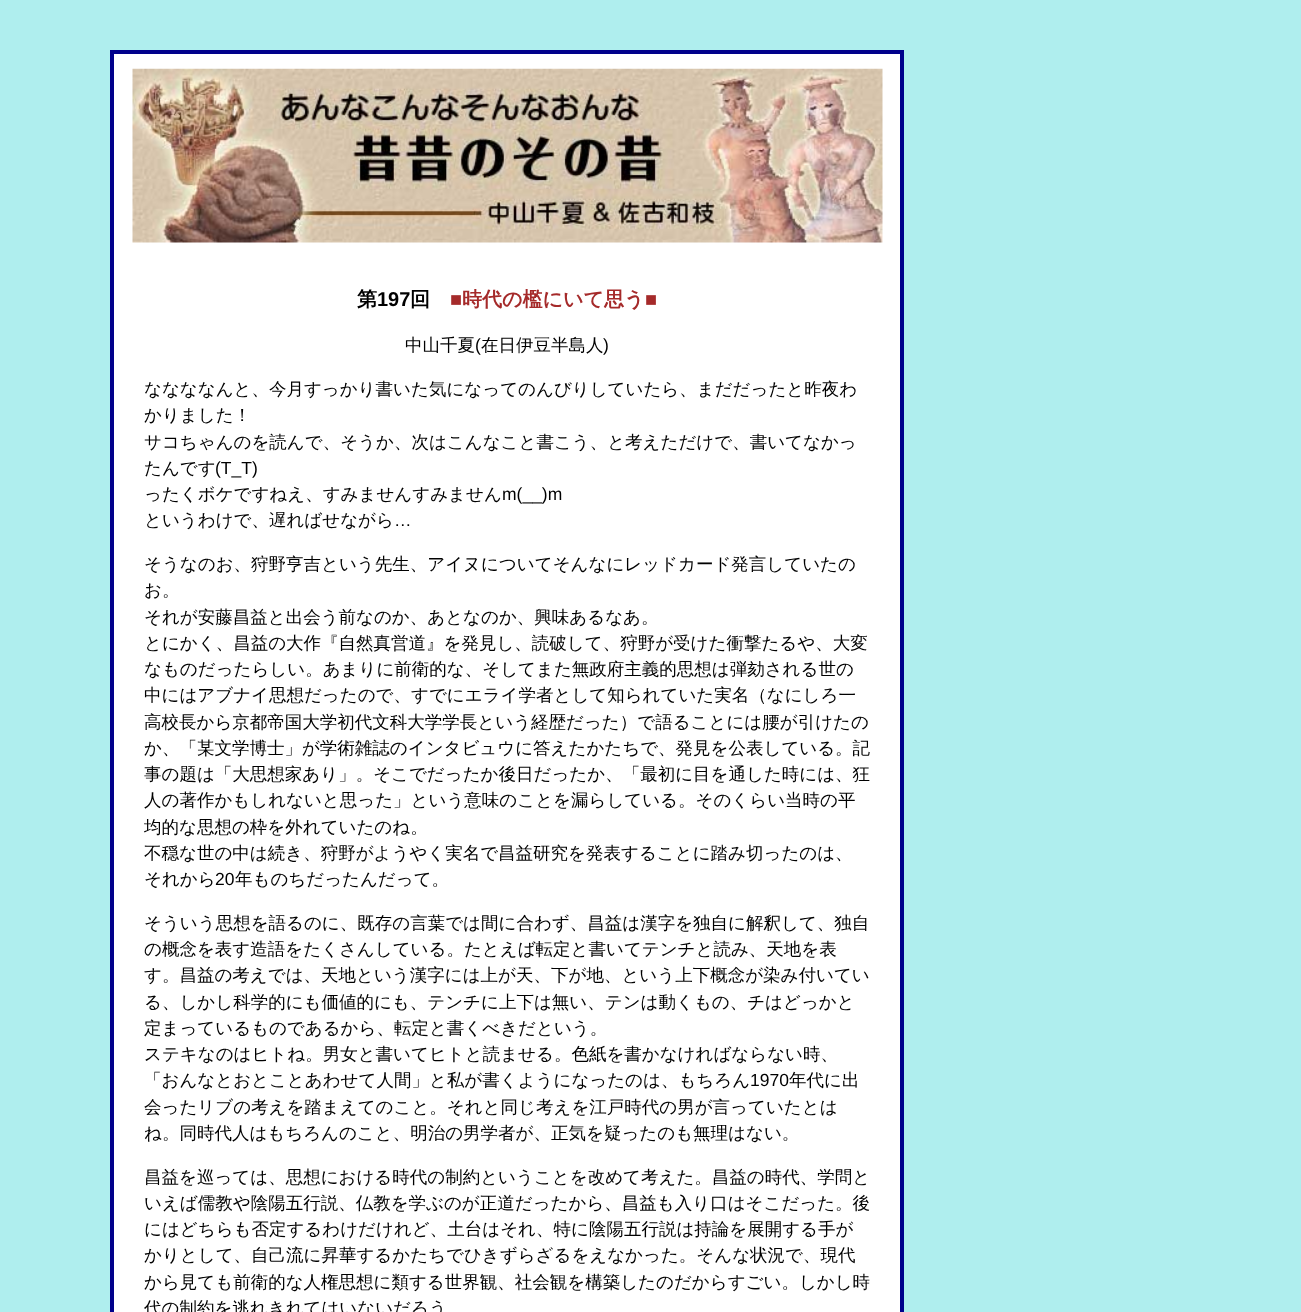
async function draw(canvas) {
  canvas.width = 1301
  canvas.height = 1312
  const ctx = canvas.getContext('2d')
  ctx.miterLimit = 4
  ctx.fontKerning = 'normal'
  async function loadImage(src) {
    const img = new Image()
    img.src = src
    await img.decode()
    return img
  }

  ctx.fillStyle = '#afeeee'
  ctx.fillRect(0, 0, 1301, 1312)
  ctx.fillStyle = '#00008b'
  ctx.fillRect(110, 50, 794, 1262)
  ctx.fillStyle = '#fff'
  ctx.fillRect(114, 54, 786, 1258)
  ctx.drawImage(await loadImage('image0.png'), 132, 68, 751, 175)
  ctx.font = 'bold 20px WenQuanYi Zen Hei'
  ctx.fillStyle = '#000'
  ctx.fillText('第', 357, 306)
  ctx.font = 'bold 20px Liberation Sans'
  ctx.fillText('197', 377, 306)
  ctx.font = 'bold 20px WenQuanYi Zen Hei'
  ctx.fillText('回', 410, 306)
  ctx.font = 'bold 20px Liberation Sans'
  ctx.fillStyle = '#a52a2a'
  ctx.fillText('■', 450, 306)
  ctx.font = 'bold 20px WenQuanYi Zen Hei'
  ctx.fillText('時代の檻にいて思う', 462, 306)
  ctx.font = 'bold 20px Liberation Sans'
  ctx.fillText('■', 645, 306)
  ctx.font = '500 17.5px WenQuanYi Zen Hei'
  ctx.fillStyle = '#000'
  ctx.fillText('中山千夏', 405, 351)
  ctx.font = '17.5px Liberation Sans'
  ctx.fillText('(', 475, 351)
  ctx.font = '500 17.5px WenQuanYi Zen Hei'
  ctx.fillText('在日伊豆半島人', 481, 351)
  ctx.font = '17.5px Liberation Sans'
  ctx.fillText(')', 603, 351)
  ctx.font = '500 17.5px WenQuanYi Zen Hei'
  ctx.fillText('ななななんと、今月すっかり書いた気になってのんびりしていたら、まだだったと昨夜わ', 144, 395)
  ctx.fillText('かりました！', 144, 421)
  ctx.fillText('サコちゃんのを読んで、そうか、次はこんなこと書こう、と考えただけで、書いてなかっ', 144, 448)
  ctx.fillText('たんです', 144, 474)
  ctx.font = '17.5px Liberation Sans'
  ctx.fillText('(T_T)', 215, 474)
  ctx.font = '500 17.5px WenQuanYi Zen Hei'
  ctx.fillText('ったくボケですねえ、すみませんすみません', 144, 500)
  ctx.font = '17.5px Liberation Sans'
  ctx.fillText('m(__)m', 502, 500)
  ctx.font = '500 17.5px WenQuanYi Zen Hei'
  ctx.fillText('というわけで、遅ればせながら', 144, 526)
  ctx.font = '17.5px Liberation Sans'
  ctx.fillText('…', 394, 526)
  ctx.font = '500 17.5px WenQuanYi Zen Hei'
  ctx.fillText('そうなのお、狩野亨吉という先生、アイヌについてそんなにレッドカード発言していたの', 144, 570)
  ctx.fillText('お。', 144, 596)
  ctx.fillText('それが安藤昌益と出会う前なのか、あとなのか、興味あるなあ。', 144, 623)
  ctx.fillText('とにかく、昌益の大作『自然真営道』を発見し、読破して、狩野が受けた衝撃たるや、大変', 144, 649)
  ctx.fillText('なものだったらしい。あまりに前衛的な、そしてまた無政府主義的思想は弾劾される世の', 144, 675)
  ctx.fillText('中にはアブナイ思想だったので、すでにエライ学者として知られていた実名（なにしろ一', 144, 701)
  ctx.fillText('高校長から京都帝国大学初代文科大学学長という経歴だった）で語ることには腰が引けたの', 144, 728)
  ctx.fillText('か、「某文学博士」が学術雑誌のインタビュウに答えたかたちで、発見を公表している。記', 144, 754)
  ctx.fillText('事の題は「大思想家あり」。そこでだったか後日だったか、「最初に目を通した時には、狂', 144, 780)
  ctx.fillText('人の著作かもしれないと思った」という意味のことを漏らしている。そのくらい当時の平', 144, 806)
  ctx.fillText('均的な思想の枠を外れていたのね。', 144, 833)
  ctx.fillText('不穏な世の中は続き、狩野がようやく実名で昌益研究を発表することに踏み切ったのは、', 144, 859)
  ctx.fillText('それから', 144, 885)
  ctx.font = '17.5px Liberation Sans'
  ctx.fillText('20', 215, 885)
  ctx.font = '500 17.5px WenQuanYi Zen Hei'
  ctx.fillText('年ものちだったんだって。', 235, 885)
  ctx.fillText('そういう思想を語るのに、既存の言葉では間に合わず、昌益は漢字を独自に解釈して、独自', 144, 929)
  ctx.fillText('の概念を表す造語をたくさんしている。たとえば転定と書いてテンチと読み、天地を表', 144, 955)
  ctx.fillText('す。昌益の考えでは、天地という漢字には上が天、下が地、という上下概念が染み付いてい', 144, 981)
  ctx.fillText('る、しかし科学的にも価値的にも、テンチに上下は無い、テンは動くもの、チはどっかと', 144, 1008)
  ctx.fillText('定まっているものであるから、転定と書くべきだという。', 144, 1034)
  ctx.fillText('ステキなのはヒトね。男女と書いてヒトと読ませる。色紙を書かなければならない時、', 144, 1060)
  ctx.fillText('「おんなとおとことあわせて人間」と私が書くようになったのは、もちろん', 144, 1086)
  ctx.font = '17.5px Liberation Sans'
  ctx.fillText('1970', 750, 1086)
  ctx.font = '500 17.5px WenQuanYi Zen Hei'
  ctx.fillText('年代に出', 789, 1086)
  ctx.fillText('会ったリブの考えを踏まえてのこと。それと同じ考えを江戸時代の男が言っていたとは', 144, 1113)
  ctx.fillText('ね。同時代人はもちろんのこと、明治の男学者が、正気を疑ったのも無理はない。', 144, 1139)
  ctx.fillText('昌益を巡っては、思想における時代の制約ということを改めて考えた。昌益の時代、学問と', 144, 1183)
  ctx.fillText('いえば儒教や陰陽五行説、仏教を学ぶのが正道だったから、昌益も入り口はそこだった。後', 144, 1209)
  ctx.fillText('にはどちらも否定するわけだけれど、土台はそれ、特に陰陽五行説は持論を展開する手が', 144, 1235)
  ctx.fillText('かりとして、自己流に昇華するかたちでひきずらざるをえなかった。そんな状況で、現代', 144, 1261)
  ctx.fillText('から見ても前衛的な人権思想に類する世界観、社会観を構築したのだからすごい。しかし時', 144, 1288)
  ctx.fillText('代の制約を逃れきれてはいないだろう', 144, 1314)
}

draw(document.querySelector('canvas'))
